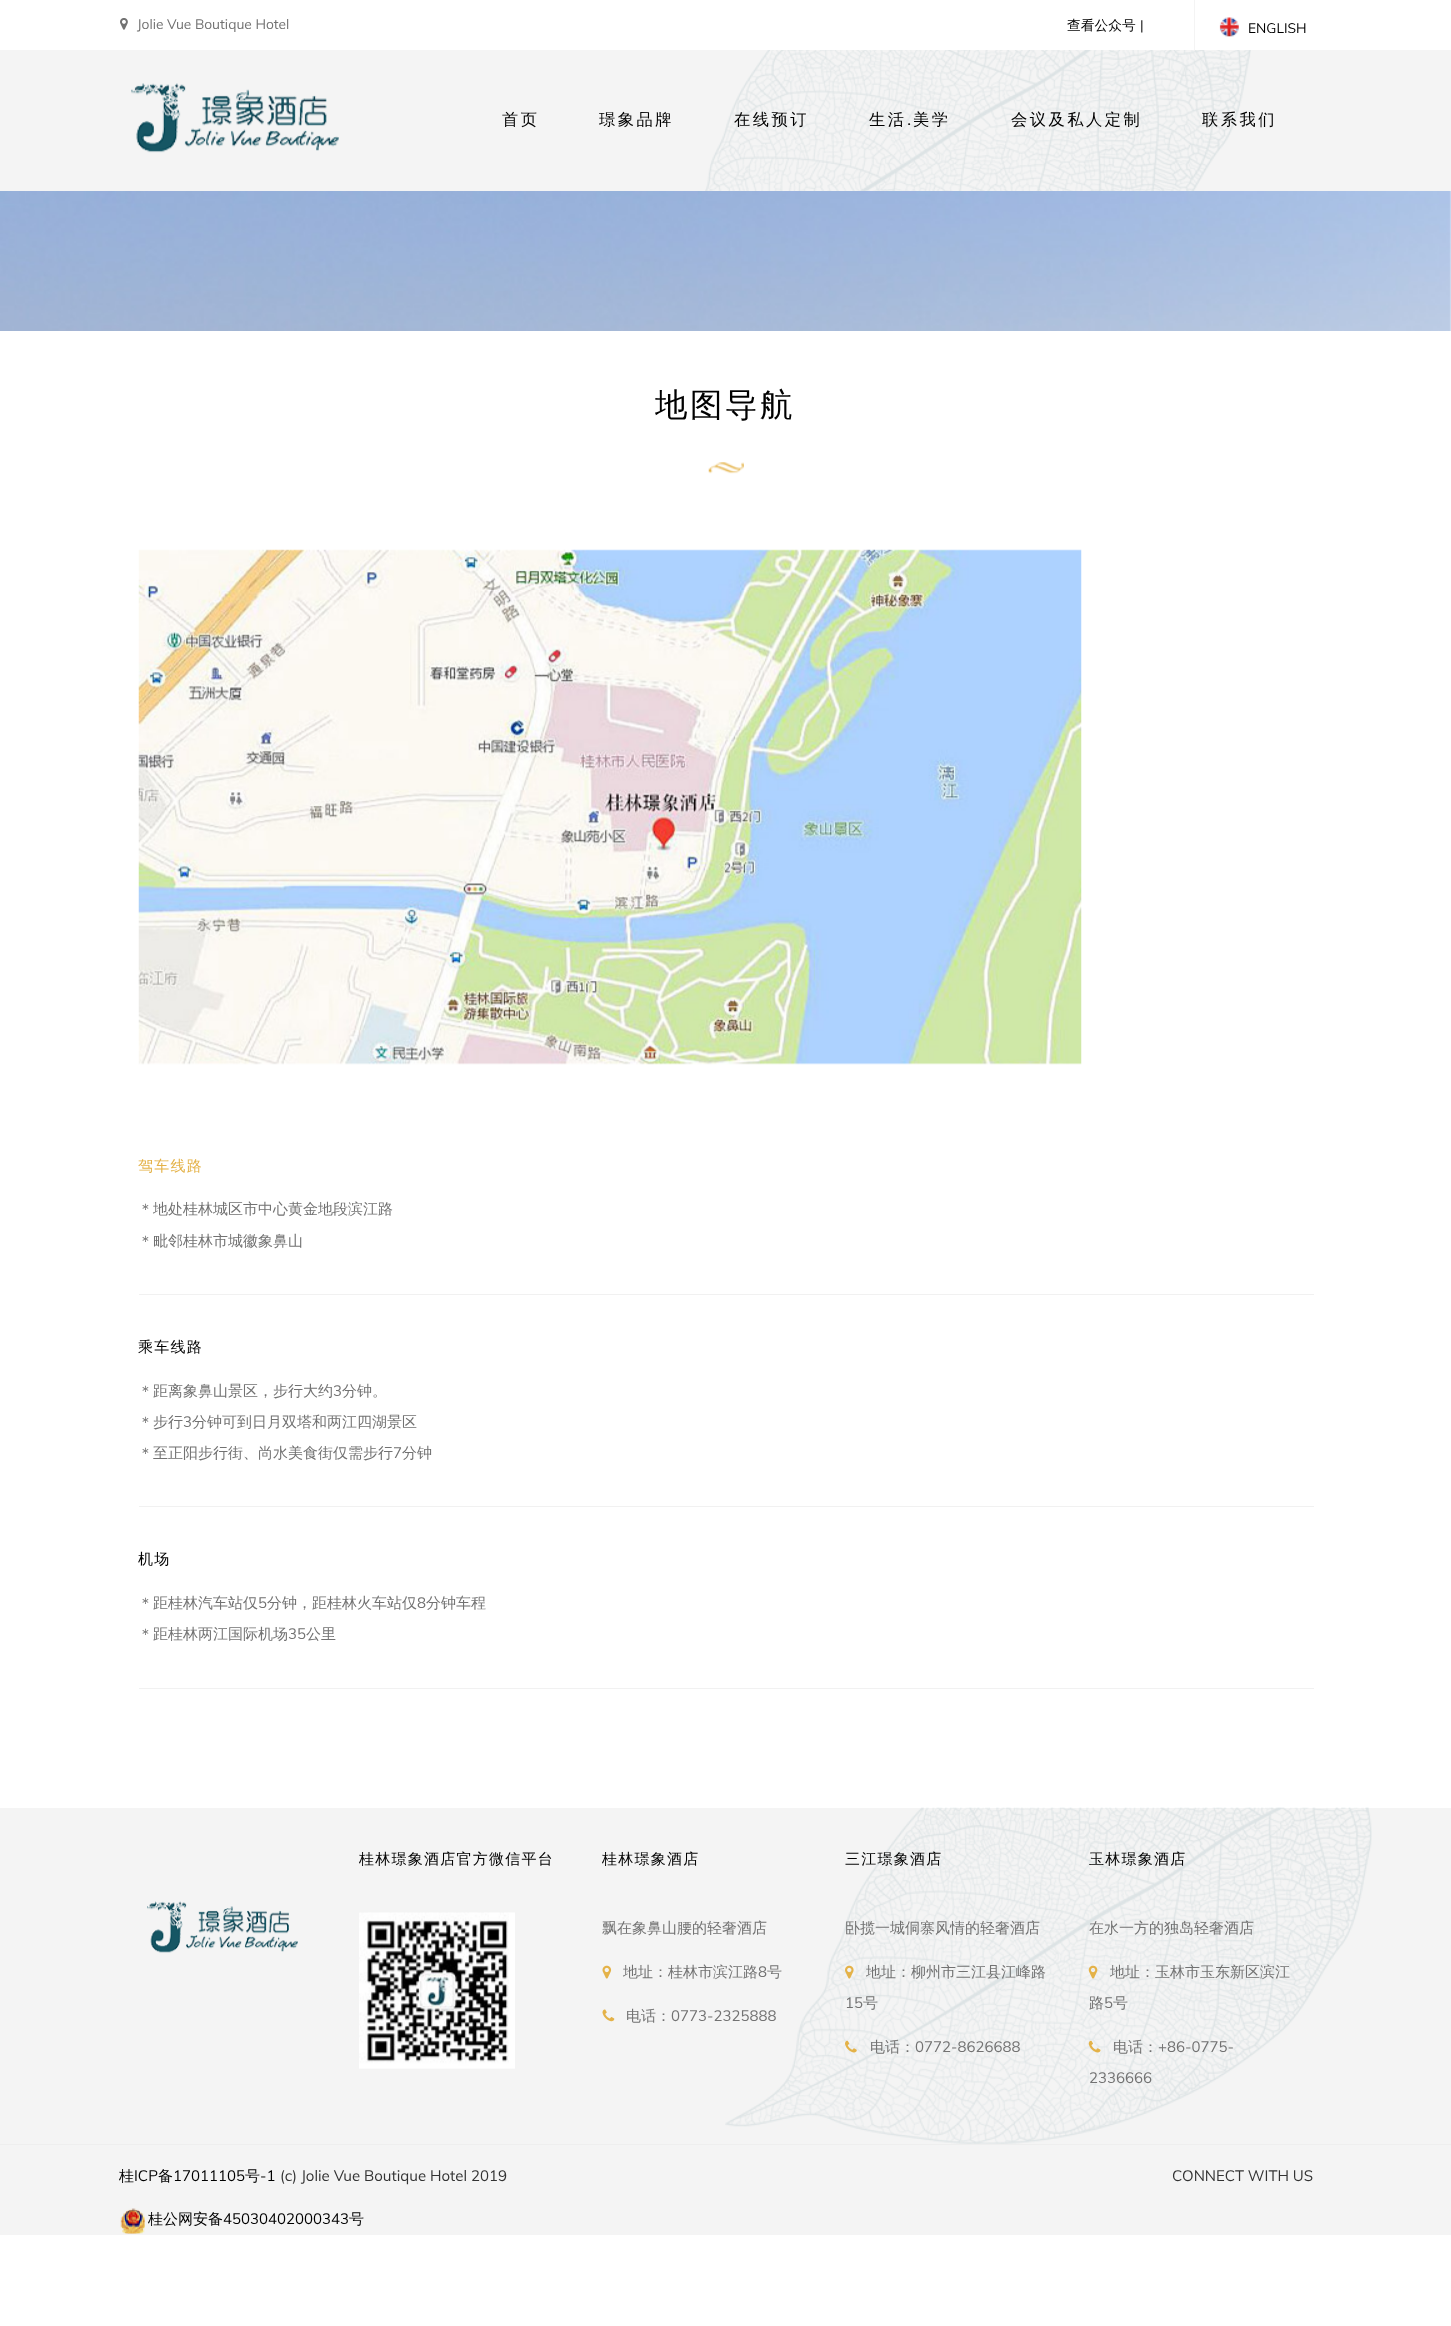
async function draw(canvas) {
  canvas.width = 1451
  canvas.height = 2326
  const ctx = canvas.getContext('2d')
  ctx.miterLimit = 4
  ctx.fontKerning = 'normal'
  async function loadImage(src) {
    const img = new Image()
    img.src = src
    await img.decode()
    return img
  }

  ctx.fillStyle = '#fff'
  ctx.fillRect(0, 0, 1451, 2326)
  ctx.drawImage(await loadImage('image0.png'), 120, 18, 8, 12)
  ctx.font = '13.75px Muli'
  ctx.fillStyle = '#727272'
  ctx.fillText('Jolie Vue Boutique Hotel', 137, 29)
  ctx.font = '500 13.75px WenQuanYi Zen Hei'
  ctx.fillStyle = '#000'
  ctx.fillText('查看公众号', 1067, 30)
  ctx.font = '13.75px Muli'
  ctx.fillText('|', 1140, 30)
  ctx.fillStyle = '#f4f4f4'
  ctx.fillRect(1194, 0, 1, 50)
  ctx.drawImage(await loadImage('image1.png'), 1219, 17, 20, 20)
  ctx.fillStyle = '#000'
  ctx.fillText('ENGLISH', 1248, 33)
  ctx.fillStyle = '#f4f4f4'
  ctx.fillRect(0, 50, 1451, 141)
  ctx.drawImage(await loadImage('image2.png'), 705, 50, 546, 141)
  ctx.drawImage(await loadImage('image3.png'), 131, 83, 208, 70)
  ctx.letterSpacing = '2.5px'
  ctx.font = '500 16.25px WenQuanYi Zen Hei'
  ctx.fillStyle = '#000'
  ctx.fillText('首页', 502, 125)
  ctx.fillText('璟象品牌', 599, 125)
  ctx.fillText('在线预订', 734, 125)
  ctx.fillText('生活', 869, 125)
  ctx.font = '16.25px Varela Round'
  ctx.fillText('.', 907, 125)
  ctx.font = '500 16.25px WenQuanYi Zen Hei'
  ctx.fillText('美学', 913, 125)
  ctx.fillText('会议及私人定制', 1011, 125)
  ctx.fillText('联系我们', 1202, 125)
  ctx.drawImage(await loadImage('image4.png'), 0, 191, 1451, 140)
  ctx.font = '500 32.5px WenQuanYi Zen Hei'
  ctx.fillText('地图导航', 655, 416)
  ctx.drawImage(await loadImage('image5.png'), 708, 462, 36, 12)
  ctx.drawImage(await loadImage('image6.png'), 138, 549, 944, 516)
  ctx.fillStyle = '#f1f1f1'
  ctx.fillRect(139, 1294, 1175, 1)
  ctx.letterSpacing = '1.25px'
  ctx.font = '500 15px WenQuanYi Zen Hei'
  ctx.fillStyle = '#e4b248'
  ctx.fillText('驾车线路', 138, 1171)
  ctx.letterSpacing = '0px'
  ctx.fillStyle = '#727272'
  ctx.fillText('＊地处桂林城区市中心黄金地段滨江路', 138, 1214)
  ctx.fillText('＊毗邻桂林市城徽象鼻山', 138, 1246)
  ctx.fillStyle = '#f1f1f1'
  ctx.fillRect(139, 1506, 1175, 1)
  ctx.letterSpacing = '1.25px'
  ctx.fillStyle = '#000'
  ctx.fillText('乘车线路', 138, 1352)
  ctx.letterSpacing = '0px'
  ctx.fillStyle = '#727272'
  ctx.fillText('＊距离象鼻山景区，步行大约', 138, 1396)
  ctx.font = '15px Muli'
  ctx.fillText('3', 333, 1396)
  ctx.font = '500 15px WenQuanYi Zen Hei'
  ctx.fillText('分钟。', 342, 1396)
  ctx.fillText('＊步行', 138, 1427)
  ctx.font = '15px Muli'
  ctx.fillText('3', 183, 1427)
  ctx.font = '500 15px WenQuanYi Zen Hei'
  ctx.fillText('分钟可到日月双塔和两江四湖景区', 192, 1427)
  ctx.fillText('＊至正阳步行街、尚水美食街仅需步行', 138, 1458)
  ctx.font = '15px Muli'
  ctx.fillText('7', 393, 1458)
  ctx.font = '500 15px WenQuanYi Zen Hei'
  ctx.fillText('分钟', 402, 1458)
  ctx.fillStyle = '#f1f1f1'
  ctx.fillRect(139, 1688, 1175, 1)
  ctx.letterSpacing = '1.25px'
  ctx.fillStyle = '#000'
  ctx.fillText('机场', 138, 1564)
  ctx.letterSpacing = '0px'
  ctx.fillStyle = '#727272'
  ctx.fillText('＊距桂林汽车站仅', 138, 1608)
  ctx.font = '15px Muli'
  ctx.fillText('5', 258, 1608)
  ctx.font = '500 15px WenQuanYi Zen Hei'
  ctx.fillText('分钟，距桂林火车站仅', 267, 1608)
  ctx.font = '15px Muli'
  ctx.fillText('8', 417, 1608)
  ctx.font = '500 15px WenQuanYi Zen Hei'
  ctx.fillText('分钟车程', 426, 1608)
  ctx.fillText('＊距桂林两江国际机场', 138, 1639)
  ctx.font = '15px Muli'
  ctx.fillText('35', 288, 1639)
  ctx.font = '500 15px WenQuanYi Zen Hei'
  ctx.fillText('公里', 306, 1639)
  ctx.fillStyle = '#f4f4f4'
  ctx.fillRect(0, 1808, 1451, 427)
  ctx.drawImage(await loadImage('image7.png'), 725, 1807, 647, 337)
  ctx.fillStyle = '#eee'
  ctx.fillRect(0, 2144, 1451, 1)
  ctx.drawImage(await loadImage('image8.png'), 147, 1901, 151, 52)
  ctx.letterSpacing = '1.25px'
  ctx.fillStyle = '#000'
  ctx.fillText('桂林璟象酒店官方微信平台', 359, 1864)
  ctx.drawImage(await loadImage('image9.png'), 359, 1912, 156, 157)
  ctx.fillText('桂林璟象酒店', 602, 1864)
  ctx.letterSpacing = '0px'
  ctx.fillStyle = '#727272'
  ctx.fillText('飘在象鼻山腰的轻奢酒店', 602, 1933)
  ctx.drawImage(await loadImage('image10.png'), 602, 1965, 10, 14)
  ctx.fillText('地址：桂林市滨江路', 623, 1977)
  ctx.font = '15px Muli'
  ctx.fillText('8', 758, 1977)
  ctx.font = '500 15px WenQuanYi Zen Hei'
  ctx.fillText('号', 767, 1977)
  ctx.drawImage(await loadImage('image11.png'), 602, 2009, 13, 13)
  ctx.fillText('电话：', 626, 2021)
  ctx.font = '15px Muli'
  ctx.fillText('0773-2325888', 671, 2021)
  ctx.letterSpacing = '1.25px'
  ctx.font = '500 15px WenQuanYi Zen Hei'
  ctx.fillStyle = '#000'
  ctx.fillText('三江璟象酒店', 845, 1864)
  ctx.letterSpacing = '0px'
  ctx.fillStyle = '#727272'
  ctx.fillText('卧揽一城侗寨风情的轻奢酒店', 845, 1933)
  ctx.drawImage(await loadImage('image12.png'), 845, 1965, 9, 14)
  ctx.fillText('地址：柳州市三江县江峰路', 866, 1977)
  ctx.font = '15px Muli'
  ctx.fillText('15', 845, 2008)
  ctx.font = '500 15px WenQuanYi Zen Hei'
  ctx.fillText('号', 863, 2008)
  ctx.drawImage(await loadImage('image13.png'), 845, 2040, 12, 13)
  ctx.fillText('电话：', 870, 2052)
  ctx.font = '15px Muli'
  ctx.fillText('0772-8626688', 915, 2052)
  ctx.letterSpacing = '1.25px'
  ctx.font = '500 15px WenQuanYi Zen Hei'
  ctx.fillStyle = '#000'
  ctx.fillText('玉林璟象酒店', 1089, 1864)
  ctx.letterSpacing = '0px'
  ctx.fillStyle = '#727272'
  ctx.fillText('在水一方的独岛轻奢酒店', 1089, 1933)
  ctx.drawImage(await loadImage('image14.png'), 1088, 1965, 10, 14)
  ctx.fillText('地址：玉林市玉东新区滨江', 1110, 1977)
  ctx.fillText('路', 1089, 2008)
  ctx.font = '15px Muli'
  ctx.fillText('5', 1104, 2008)
  ctx.font = '500 15px WenQuanYi Zen Hei'
  ctx.fillText('号', 1113, 2008)
  ctx.drawImage(await loadImage('image15.png'), 1088, 2040, 13, 13)
  ctx.fillText('电话：', 1113, 2052)
  ctx.font = '15px Muli'
  ctx.fillText('+86-0775-', 1158, 2052)
  ctx.fillText('2336666', 1089, 2083)
  ctx.font = '500 15px WenQuanYi Zen Hei'
  ctx.fillStyle = '#000'
  ctx.fillText('桂', 119, 2181)
  ctx.font = '15px Muli'
  ctx.fillText('ICP', 134, 2181)
  ctx.font = '500 15px WenQuanYi Zen Hei'
  ctx.fillText('备', 158, 2181)
  ctx.font = '15px Muli'
  ctx.fillText('17011105', 173, 2181)
  ctx.font = '500 15px WenQuanYi Zen Hei'
  ctx.fillText('号', 245, 2181)
  ctx.font = '15px Muli'
  ctx.fillText('-1', 260, 2181)
  ctx.fillStyle = '#333'
  ctx.fillText('(c) Jolie Vue Boutique Hotel 2019', 280, 2181)
  ctx.drawImage(await loadImage('image16.png'), 120, 2208, 25, 26)
  ctx.font = '500 15px WenQuanYi Zen Hei'
  ctx.fillStyle = '#000'
  ctx.fillText('桂公网安备', 148, 2224)
  ctx.font = '15px Muli'
  ctx.fillText('45030402000343', 223, 2224)
  ctx.font = '500 15px WenQuanYi Zen Hei'
  ctx.fillText('号', 349, 2224)
  ctx.font = '15px Muli'
  ctx.fillStyle = '#333'
  ctx.fillText('CONNECT WITH US', 1172, 2181)
}

draw(document.querySelector('canvas'))
